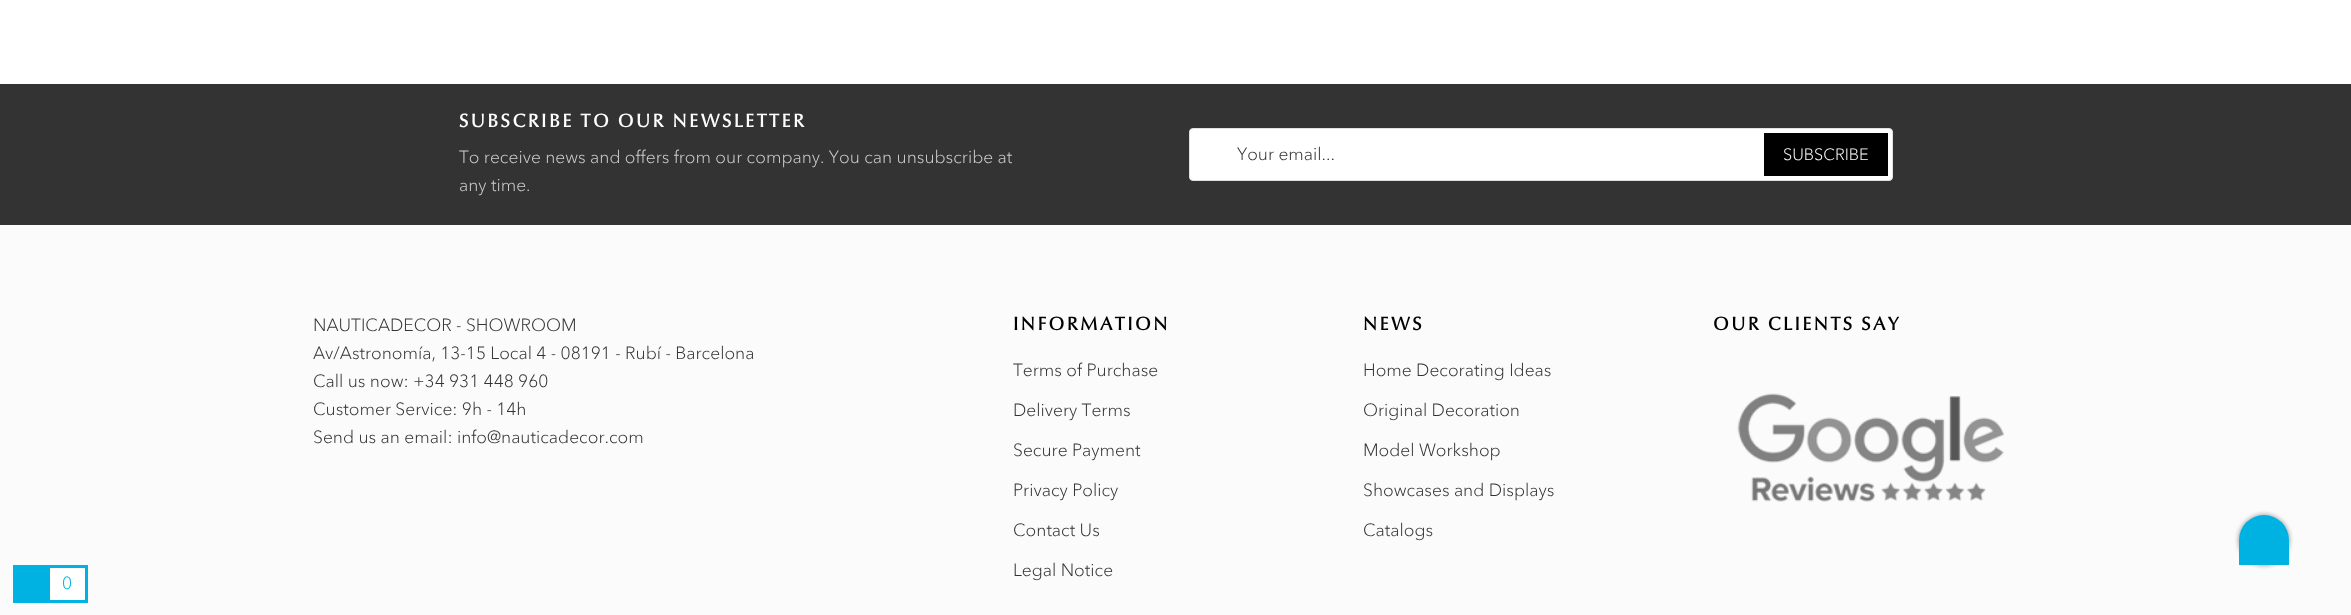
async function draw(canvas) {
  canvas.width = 2351
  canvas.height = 615
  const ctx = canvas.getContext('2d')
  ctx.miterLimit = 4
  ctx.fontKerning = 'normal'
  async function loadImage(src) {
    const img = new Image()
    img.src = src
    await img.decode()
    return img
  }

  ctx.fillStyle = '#fff'
  ctx.fillRect(0, 0, 2351, 615)
  ctx.fillStyle = '#fbfbfb'
  ctx.fillRect(0, 225, 2351, 390)
  ctx.fillStyle = '#333'
  ctx.fillRect(0, 84, 2351, 141)
  ctx.letterSpacing = '2.5px'
  ctx.font = 'bold 18.75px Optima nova'
  ctx.fillStyle = '#fff'
  ctx.fillText('SUBSCRIBE TO OUR NEWSLETTER', 459, 127)
  ctx.letterSpacing = '0px'
  ctx.font = '300 17.5px Avenir Next'
  ctx.fillStyle = '#ccc'
  ctx.fillText('To receive news and offers from our company. You can unsubscribe at', 459, 163)
  ctx.fillText('any time.', 459, 191)
  ctx.fillStyle = '#fff'
  ctx.beginPath()
  ctx.roundRect(1189.5, 128.5, 703, 52, 3.5)
  ctx.fill()
  ctx.strokeStyle = '#e1e1e1'
  ctx.stroke()
  ctx.fillStyle = '#333'
  ctx.fillText('Your email...', 1237, 160)
  ctx.fillStyle = '#000'
  ctx.fillRect(1764, 133, 124, 43)
  ctx.font = '300 16.25px Avenir Next'
  ctx.fillStyle = '#fff'
  ctx.fillText('SUBSCRIBE', 1783, 160)
  ctx.font = '300 17.5px Avenir Next'
  ctx.fillStyle = '#333'
  ctx.fillText('NAUTICADECOR - SHOWROOM', 313, 331)
  ctx.fillText('Av/Astronomía, 13-15 Local 4 - 08191 - Rubí - Barcelona', 313, 359)
  ctx.fillText('Call us now: +34 931 448 960', 313, 387)
  ctx.fillText('Customer Service: 9h - 14h', 313, 415)
  ctx.fillText('Send us an email: info@nauticadecor.com', 313, 443)
  ctx.letterSpacing = '2.5px'
  ctx.font = 'bold 18.75px Optima nova'
  ctx.fillStyle = '#000'
  ctx.fillText('INFORMATION', 1013, 330)
  ctx.letterSpacing = '0px'
  ctx.font = '300 17.5px Avenir Next'
  ctx.fillStyle = '#333'
  ctx.fillText('Terms of Purchase', 1013, 376)
  ctx.fillText('Delivery Terms', 1013, 416)
  ctx.fillText('Secure Payment', 1013, 456)
  ctx.fillText('Privacy Policy', 1013, 496)
  ctx.fillText('Contact Us', 1013, 536)
  ctx.fillText('Legal Notice', 1013, 576)
  ctx.letterSpacing = '2.5px'
  ctx.font = 'bold 18.75px Optima nova'
  ctx.fillStyle = '#000'
  ctx.fillText('NEWS', 1363, 330)
  ctx.letterSpacing = '0px'
  ctx.font = '300 17.5px Avenir Next'
  ctx.fillStyle = '#333'
  ctx.fillText('Home Decorating Ideas', 1363, 376)
  ctx.fillText('Original Decoration', 1363, 416)
  ctx.fillText('Model Workshop', 1363, 456)
  ctx.fillText('Showcases and Displays', 1363, 496)
  ctx.fillText('Catalogs', 1363, 536)
  ctx.letterSpacing = '2.5px'
  ctx.font = 'bold 18.75px Optima nova'
  ctx.fillStyle = '#000'
  ctx.fillText('OUR CLIENTS SAY', 1713, 330)
  ctx.drawImage(await loadImage('image0.png'), 1737, 393, 267, 109)
  ctx.fillStyle = '#0000004d'
  ctx.filter = 'blur(2px)'
  ctx.beginPath()
  ctx.roundRect(2238, 514, 52, 52, 26)
  ctx.fill()
  ctx.filter = 'none'
  ctx.fillStyle = '#00b2e2'
  ctx.beginPath()
  ctx.roundRect(2239, 515, 50, 50, [25, 25, 0, 0])
  ctx.fill()
  ctx.fillRect(13, 565, 75, 38)
  ctx.fillStyle = '#fff'
  ctx.fillRect(50, 568, 35, 32)
  ctx.letterSpacing = '0px'
  ctx.font = '300 17.5px Avenir Next'
  ctx.fillStyle = '#00b2e2'
  ctx.fillText('0', 62, 589)
}

draw(document.querySelector('canvas'))
